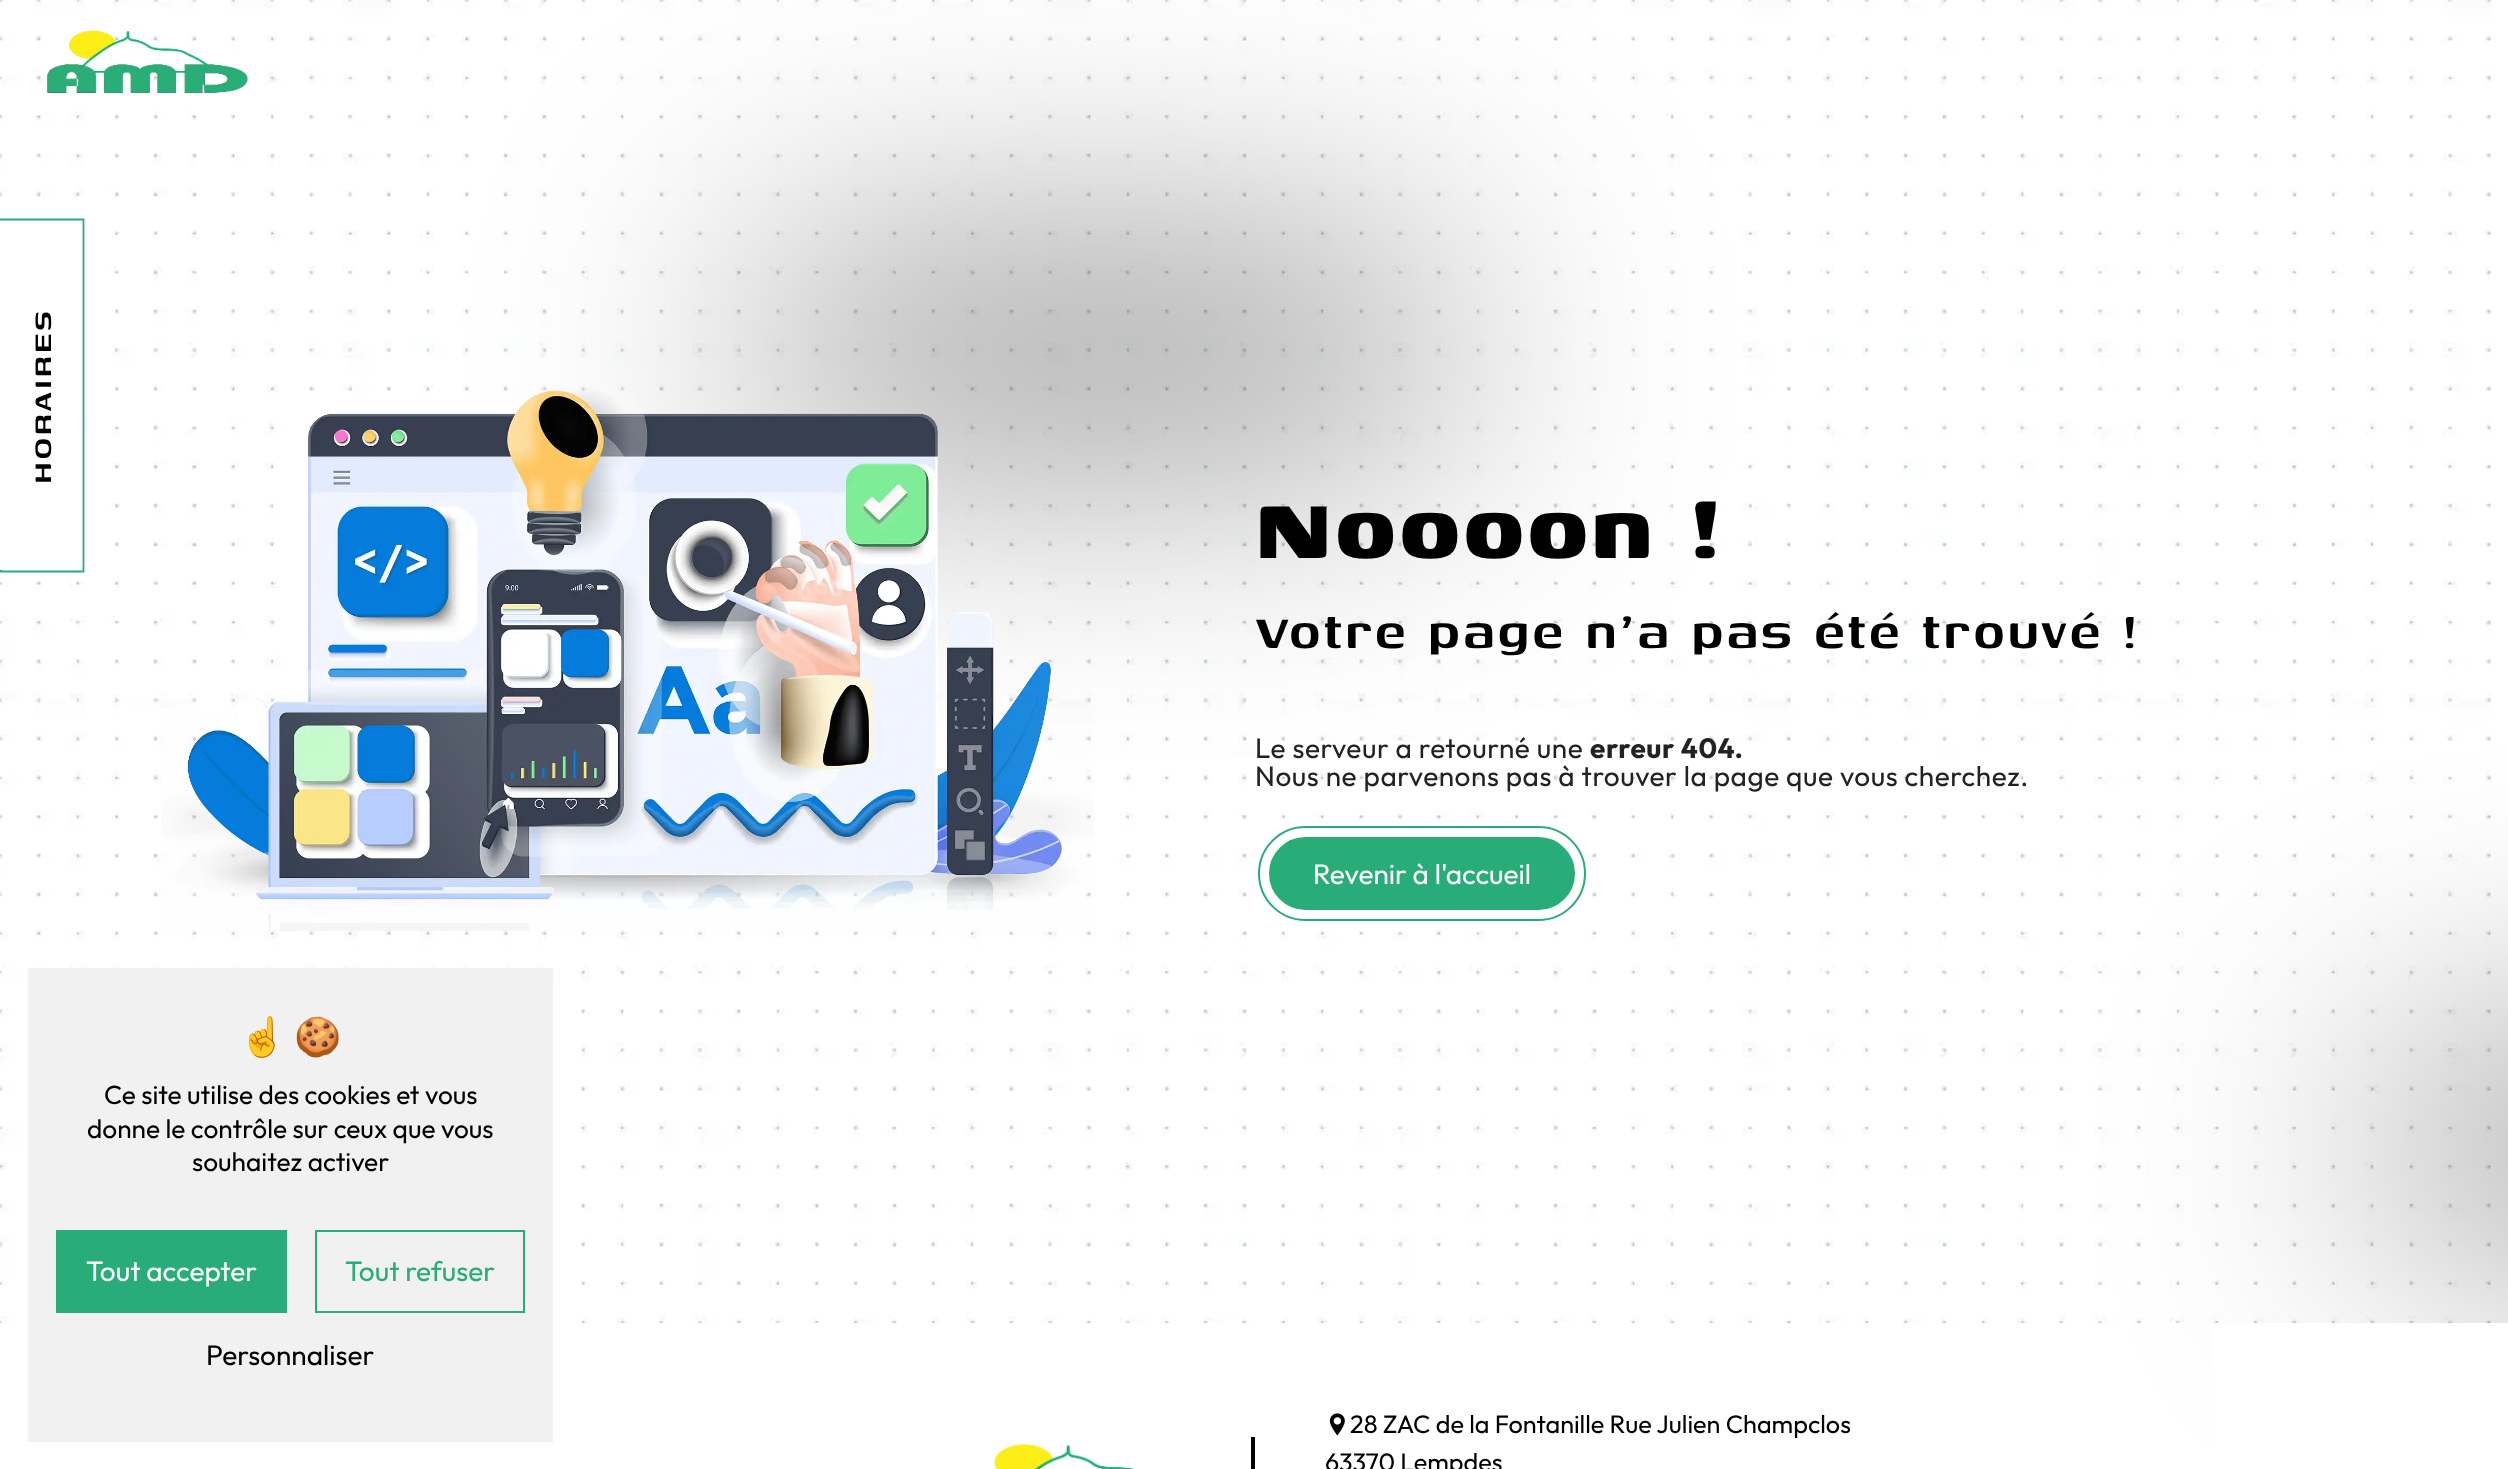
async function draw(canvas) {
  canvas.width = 2508
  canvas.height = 1469
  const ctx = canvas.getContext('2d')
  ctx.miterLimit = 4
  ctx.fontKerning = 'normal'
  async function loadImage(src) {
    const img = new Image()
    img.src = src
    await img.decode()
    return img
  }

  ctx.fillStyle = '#fff'
  ctx.fillRect(0, 0, 2508, 1469)
  ctx.drawImage(await loadImage('image0.png'), 0, 0, 2492, 1323)
  ctx.drawImage(await loadImage('image1.png'), 47, 30, 201, 63)
  ctx.strokeStyle = '#29ad78'
  ctx.lineWidth = 2
  ctx.strokeRect(-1, 220, 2, 351)
  ctx.fillRect(0, 220, 83, 350)
  ctx.letterSpacing = '2.8px'
  ctx.font = '600 33.5px Genos'
  ctx.fillStyle = '#000'
  ctx.save()
  ctx.translate(51, 484)
  ctx.rotate(-90 * Math.PI / 180)
  ctx.fillText('HORAIRES', 0, 0)
  ctx.restore()
  ctx.beginPath()
  ctx.moveTo(-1, 571.5)
  ctx.lineTo(-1, 219.5)
  ctx.lineTo(83.5, 219.5)
  ctx.lineTo(83.5, 571.5)
  ctx.closePath()
  ctx.lineWidth = 1.8
  ctx.stroke()
  ctx.fillStyle = '#00000080'
  ctx.filter = 'blur(140px)'
  ctx.beginPath()
  ctx.roundRect(753, 264, 700, 175, 87.5)
  ctx.fill()
  ctx.filter = 'none'
  ctx.filter = 'blur(140px)'
  ctx.beginPath()
  ctx.roundRect(2384, 1059, 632, 175, 87.5)
  ctx.fill()
  ctx.filter = 'none'
  ctx.drawImage(await loadImage('image2.png'), 161, 386, 933, 548)
  ctx.font = '800 112px Genos'
  ctx.fillStyle = '#000'
  ctx.fillText('Noooon !', 1255, 558)
  ctx.font = '600 61.6px Genos'
  ctx.fillText('Votre page n\'a pas été trouvé !', 1255, 648)
  ctx.letterSpacing = '0.55px'
  ctx.font = '28px Outfit'
  ctx.fillStyle = '#222'
  ctx.fillText('Le serveur a retourné une', 1255, 758)
  ctx.font = 'bold 28px Outfit'
  ctx.fillText('erreur 404.', 1590, 758)
  ctx.font = '28px Outfit'
  ctx.fillText('Nous ne parvenons pas à trouver la page que vous cherchez.', 1255, 786)
  ctx.fillStyle = '#29ad78'
  ctx.beginPath()
  ctx.roundRect(1270, 838, 304, 71, 35.5)
  ctx.fill()
  ctx.lineWidth = 2
  ctx.stroke()
  ctx.beginPath()
  ctx.roundRect(1259, 827, 326, 93, 46.5)
  ctx.stroke()
  ctx.letterSpacing = '0px'
  ctx.fillStyle = '#fff'
  ctx.fillText('Revenir à l\'accueil', 1313, 884)
  ctx.fillStyle = '#f1f1f1'
  ctx.fillRect(28, 968, 525, 474)
  ctx.font = '38px Noto Color Emoji'
  ctx.fillStyle = '#222'
  ctx.fillText('☝', 239, 1050)
  ctx.fillText('🍪', 294, 1050)
  ctx.font = '26.25px Outfit'
  ctx.fillStyle = '#000'
  ctx.fillText('Ce site utilise des cookies et vous', 104, 1104)
  ctx.fillText('donne le contrôle sur ceux que vous', 87, 1138)
  ctx.fillText('souhaitez activer', 192, 1171)
  ctx.fillStyle = '#29ad78'
  ctx.fillRect(56, 1230, 231, 83)
  ctx.font = '28px Outfit'
  ctx.fillStyle = '#fff'
  ctx.fillText('Tout accepter', 86, 1281)
  ctx.strokeRect(316, 1231, 208, 81)
  ctx.fillStyle = '#29ad78'
  ctx.fillText('Tout refuser', 345, 1281)
  ctx.fillStyle = '#000'
  ctx.fillText('Personnaliser', 206, 1365)
  ctx.fillStyle = '#fff'
  ctx.fillRect(2211, 1323, 297, 146)
  ctx.fillStyle = '#000'
  ctx.fillRect(1251, 1437, 4, 32)
  ctx.drawImage(await loadImage('image3.png'), 994, 1444, 141, 25)
  ctx.drawImage(await loadImage('image4.png'), 1329, 1413, 16, 23)
  ctx.font = '25.25px Outfit'
  ctx.fillText('28 ZAC de la Fontanille Rue Julien Champclos', 1350, 1433)
  ctx.fillText('63370 Lempdes', 1325, 1471)
}

draw(document.querySelector('canvas'))
